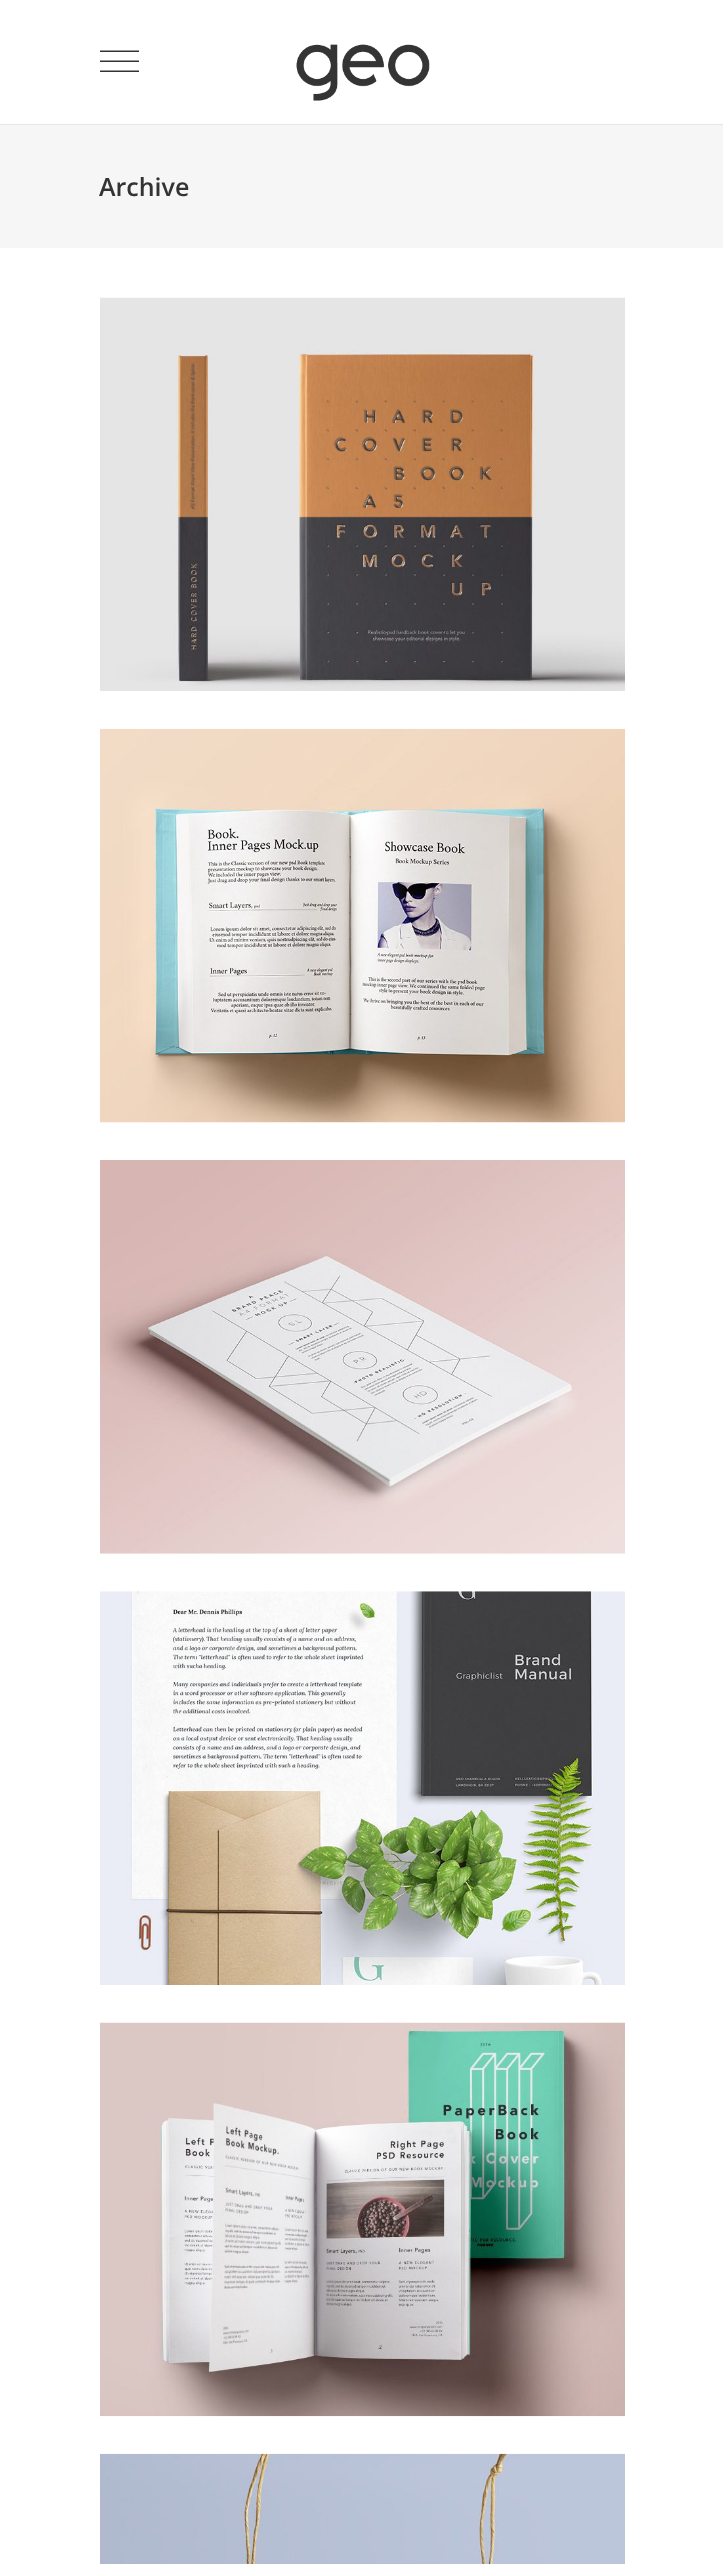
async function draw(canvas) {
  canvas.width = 723
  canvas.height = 2564
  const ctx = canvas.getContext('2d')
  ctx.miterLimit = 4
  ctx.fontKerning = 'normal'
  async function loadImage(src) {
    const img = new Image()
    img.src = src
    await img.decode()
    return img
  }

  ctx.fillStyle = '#fff'
  ctx.fillRect(0, 0, 723, 2564)
  ctx.fillStyle = '#e5e5e5'
  ctx.fillRect(0, 124, 723, 1)
  ctx.fillStyle = '#333'
  ctx.fillRect(100, 51, 39, 1)
  ctx.fillStyle = '#999'
  ctx.fillRect(100, 50, 39, 1)
  ctx.fillStyle = '#333'
  ctx.fillRect(100, 61, 39, 1)
  ctx.fillStyle = '#999'
  ctx.fillRect(100, 60, 39, 1)
  ctx.fillStyle = '#333'
  ctx.fillRect(100, 71, 39, 1)
  ctx.fillStyle = '#999'
  ctx.fillRect(100, 70, 39, 1)
  ctx.drawImage(await loadImage('image0.png'), 296, 44, 134, 57)
  ctx.fillStyle = '#f6f6f6'
  ctx.fillRect(0, 125, 723, 123)
  ctx.font = '600 25px Open Sans'
  ctx.fillStyle = '#333'
  ctx.fillText('Archive', 99, 196)
  ctx.drawImage(await loadImage('image1.png'), 100, 297, 525, 394)
  ctx.drawImage(await loadImage('image2.png'), 100, 728, 525, 395)
  ctx.drawImage(await loadImage('image3.png'), 100, 1160, 525, 394)
  ctx.drawImage(await loadImage('image4.png'), 100, 1591, 525, 394)
  ctx.drawImage(await loadImage('image5.png'), 100, 2022, 525, 395)
  ctx.drawImage(await loadImage('image6.png'), 100, 2453, 525, 111)
}

draw(document.querySelector('canvas'))
